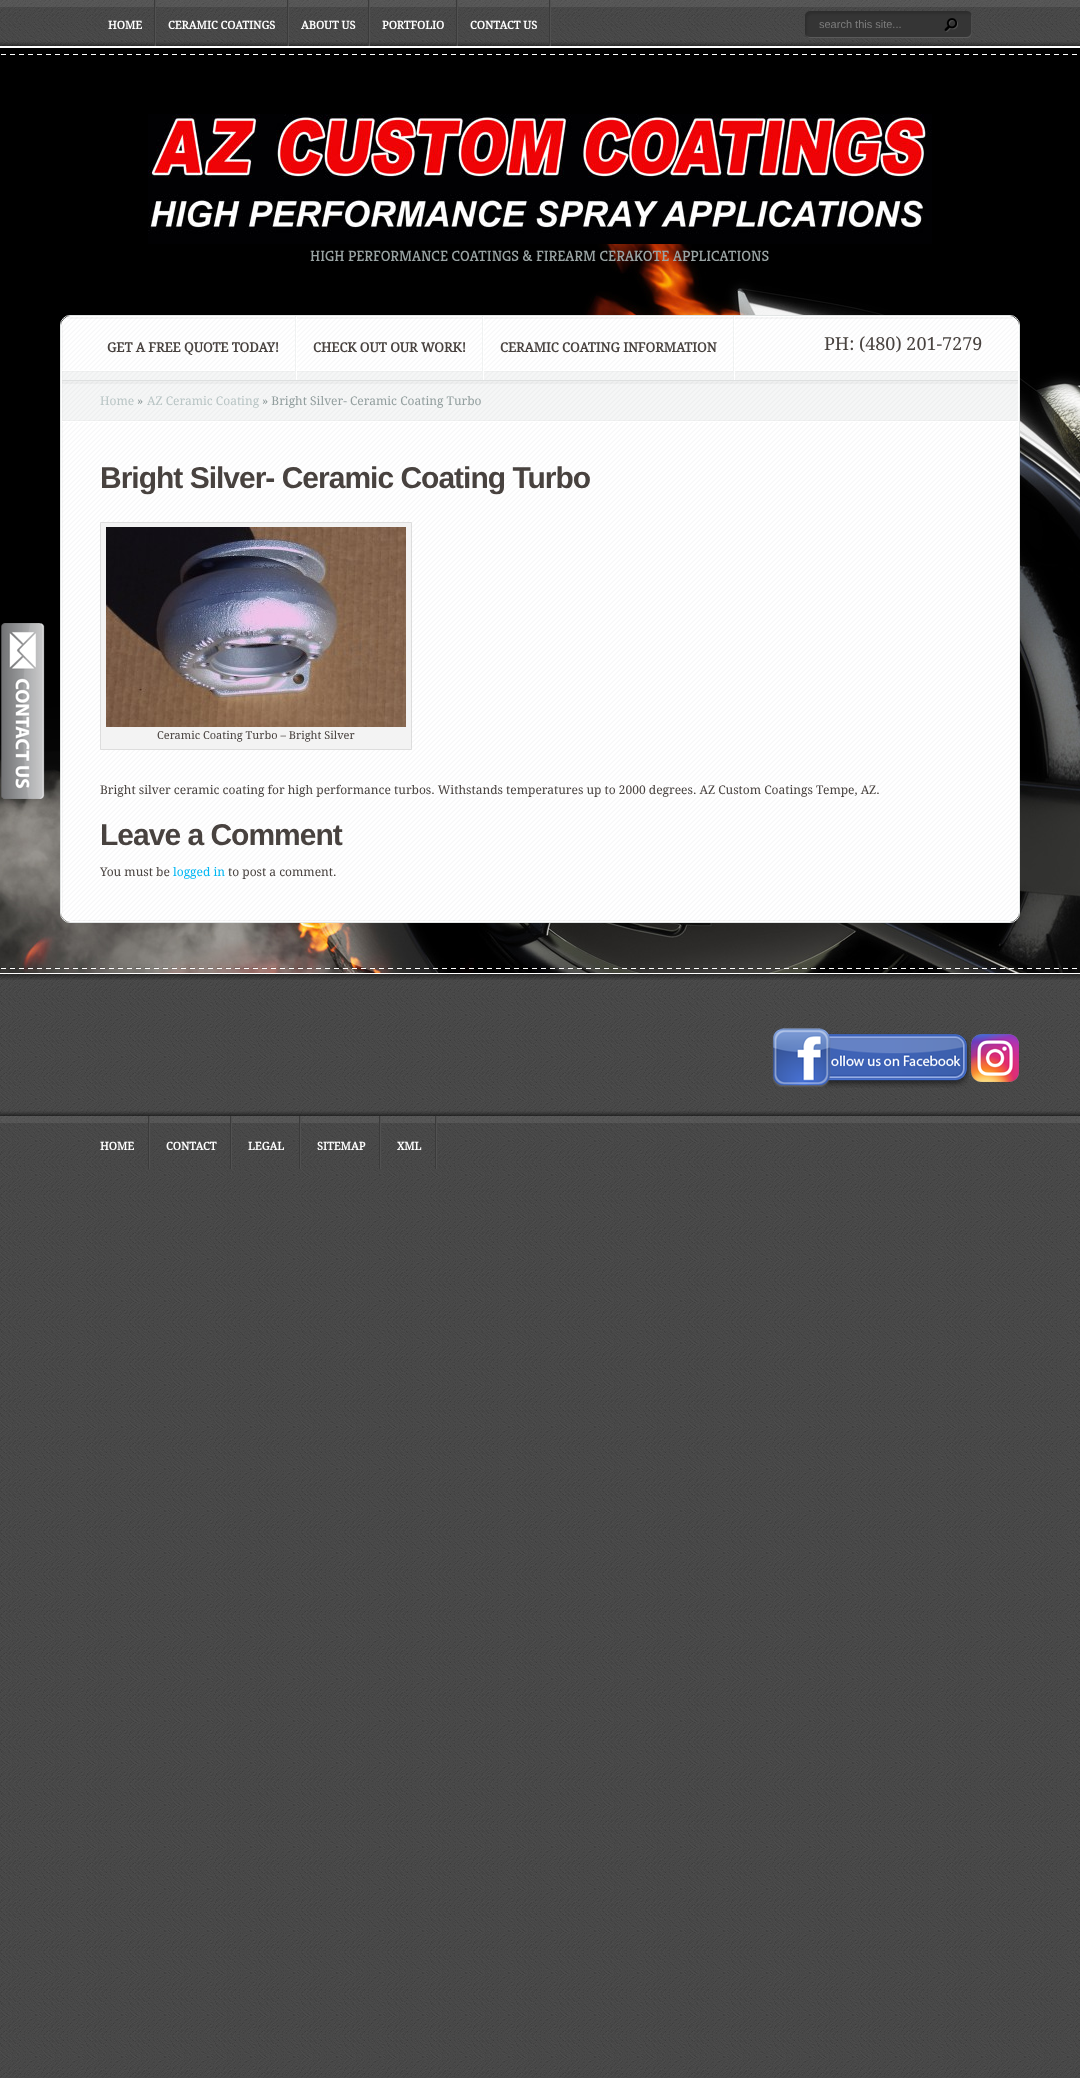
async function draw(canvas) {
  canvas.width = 1080
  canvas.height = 2078
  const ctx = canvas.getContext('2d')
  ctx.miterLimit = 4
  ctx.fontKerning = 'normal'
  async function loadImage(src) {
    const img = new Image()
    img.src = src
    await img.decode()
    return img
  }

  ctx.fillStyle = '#fff'
  ctx.fillRect(0, 0, 1080, 2078)
  ctx.drawImage(await loadImage('image0.png'), 0, 0, 1080, 2078)
  ctx.fillRect(0, 46, 1080, 2)
  ctx.fillStyle = '#ffffff14'
  ctx.fillRect(0, 0, 1080, 7)
  ctx.drawImage(await loadImage('image4.png'), 0, 42, 1080, 4)
  ctx.drawImage(await loadImage('image1.png'), 154, 0, 2, 46)
  ctx.font = 'bold 11px Droid Serif'
  ctx.fillStyle = '#fff'
  ctx.fillText('HOME', 108, 29)
  ctx.drawImage(await loadImage('image1.png'), 287, 0, 2, 46)
  ctx.fillText('CERAMIC COATINGS', 168, 29)
  ctx.drawImage(await loadImage('image1.png'), 368, 0, 2, 46)
  ctx.fillText('ABOUT US', 301, 29)
  ctx.drawImage(await loadImage('image1.png'), 456, 0, 2, 46)
  ctx.fillText('PORTFOLIO', 382, 29)
  ctx.drawImage(await loadImage('image1.png'), 549, 0, 2, 46)
  ctx.fillText('CONTACT US', 470, 29)
  ctx.drawImage(await loadImage('image2.png'), 805, 11, 167, 27)
  ctx.font = '11px Liberation Sans'
  ctx.fillStyle = '#7d7d7d'
  ctx.fillText('search this site...', 819, 28)
  ctx.drawImage(await loadImage('image3.png'), 944, 18, 14, 14)
  ctx.drawImage(await loadImage('image6.png'), 0, 48, 1080, 925)
  ctx.drawImage(await loadImage('image5.png'), 1, 623, 44, 176)
  ctx.fillStyle = '#fff'
  ctx.fillRect(0, 973, 1080, 1)
  ctx.drawImage(await loadImage('image7.png'), 1, 54, 1076, 1)
  ctx.drawImage(await loadImage('image8.png'), 148, 114, 784, 130)
  ctx.font = '15px Kreon'
  ctx.fillStyle = '#9aa4a4'
  ctx.fillText('HIGH PERFORMANCE COATINGS & FIREARM CERAKOTE APPLICATIONS', 310, 261)
  ctx.beginPath()
  ctx.roundRect(60.5, 315.5, 959, 607, 9.5)
  ctx.strokeStyle = '#e2e5e5'
  ctx.stroke()
  ctx.drawImage(await loadImage('image9.png'), 61, 316, 958, 606)
  ctx.beginPath()
  ctx.roundRect(61.5, 316.5, 957, 605, 9.5)
  ctx.strokeStyle = '#fff'
  ctx.stroke()
  ctx.drawImage(await loadImage('image10.png'), 62, 325, 1, 588)
  ctx.fillStyle = '#00000008'
  ctx.fillRect(67, 317, 946, 2)
  ctx.drawImage(await loadImage('image11.png'), 71, 920, 938, 1)
  ctx.drawImage(await loadImage('image12.png'), 62, 370, 956, 10)
  ctx.drawImage(await loadImage('image13.png'), 295, 316, 2, 64)
  ctx.font = 'bold 13px Droid Serif'
  ctx.fillStyle = '#48423f'
  ctx.fillText('GET A FREE QUOTE TODAY!', 107, 352)
  ctx.drawImage(await loadImage('image13.png'), 482, 316, 2, 64)
  ctx.fillText('CHECK OUT OUR WORK!', 313, 352)
  ctx.drawImage(await loadImage('image13.png'), 733, 316, 2, 64)
  ctx.fillText('CERAMIC COATING INFORMATION', 500, 352)
  ctx.font = '18px Droid Serif'
  ctx.fillText('PH: (480) 201-7279', 824, 350)
  ctx.drawImage(await loadImage('image14.png'), 62, 381, 956, 41)
  ctx.fillStyle = '#00000008'
  ctx.fillRect(62, 382, 956, 2)
  ctx.fillStyle = '#dee0e0'
  ctx.fillRect(62, 380, 956, 1)
  ctx.font = '12px Droid Serif'
  ctx.fillStyle = '#b9c5c5'
  ctx.fillText('Home', 100, 405)
  ctx.fillStyle = '#929e9e'
  ctx.fillText('»', 137, 405)
  ctx.fillStyle = '#b9c5c5'
  ctx.fillText('AZ Ceramic Coating', 147, 405)
  ctx.fillStyle = '#929e9e'
  ctx.fillText('» Bright Silver- Ceramic Coating Turbo', 262, 405)
  ctx.letterSpacing = '-1px'
  ctx.font = 'bold 30px Liberation Sans'
  ctx.fillStyle = '#48423f'
  ctx.fillText('Bright Silver- Ceramic Coating Turbo', 100, 488)
  ctx.fillStyle = '#f3f3f3'
  ctx.beginPath()
  ctx.rect(100.5, 522.5, 311, 227)
  ctx.fill()
  ctx.strokeStyle = '#ddd'
  ctx.stroke()
  ctx.drawImage(await loadImage('image15.png'), 106, 527, 300, 200)
  ctx.letterSpacing = '0px'
  ctx.font = '11px Droid Serif'
  ctx.fillStyle = '#48423f'
  ctx.fillText('Ceramic Coating Turbo – Bright Silver', 157, 739)
  ctx.font = '12px Droid Serif'
  ctx.fillText('Bright silver ceramic coating for high performance turbos. Withstands temperatures up to 2000 degrees. AZ Custom Coatings Tempe, AZ.', 100, 794)
  ctx.letterSpacing = '-1px'
  ctx.font = 'bold 30px Liberation Sans'
  ctx.fillText('Leave a Comment', 100, 845)
  ctx.letterSpacing = '0px'
  ctx.font = '12px Droid Serif'
  ctx.fillText('You must be', 100, 876)
  ctx.fillStyle = '#00b7f3'
  ctx.fillText('logged in', 173, 876)
  ctx.fillStyle = '#48423f'
  ctx.fillText('to post a comment.', 228, 876)
  ctx.drawImage(await loadImage('image16.png'), 0, 967, 1077, 2)
  ctx.drawImage(await loadImage('image17.png'), 0, 974, 1080, 195)
  ctx.drawImage(await loadImage('image18.png'), 0, 974, 1080, 6)
  ctx.drawImage(await loadImage('image19.png'), 772, 1028, 197, 60)
  ctx.drawImage(await loadImage('image20.png'), 971, 1034, 48, 48)
  ctx.drawImage(await loadImage('image21.png'), 0, 1111, 1080, 5)
  ctx.fillStyle = '#ffffff14'
  ctx.fillRect(0, 1116, 1080, 7)
  ctx.drawImage(await loadImage('image22.png'), 148, 1116, 2, 53)
  ctx.font = 'bold 11px Droid Serif'
  ctx.fillStyle = '#fff'
  ctx.fillText('HOME', 100, 1150)
  ctx.drawImage(await loadImage('image22.png'), 230, 1116, 2, 53)
  ctx.fillText('CONTACT', 166, 1150)
  ctx.drawImage(await loadImage('image22.png'), 299, 1116, 2, 53)
  ctx.fillText('LEGAL', 248, 1150)
  ctx.drawImage(await loadImage('image22.png'), 379, 1116, 2, 53)
  ctx.fillText('SITEMAP', 317, 1150)
  ctx.drawImage(await loadImage('image22.png'), 435, 1116, 2, 53)
  ctx.fillText('XML', 397, 1150)
}

draw(document.querySelector('canvas'))
